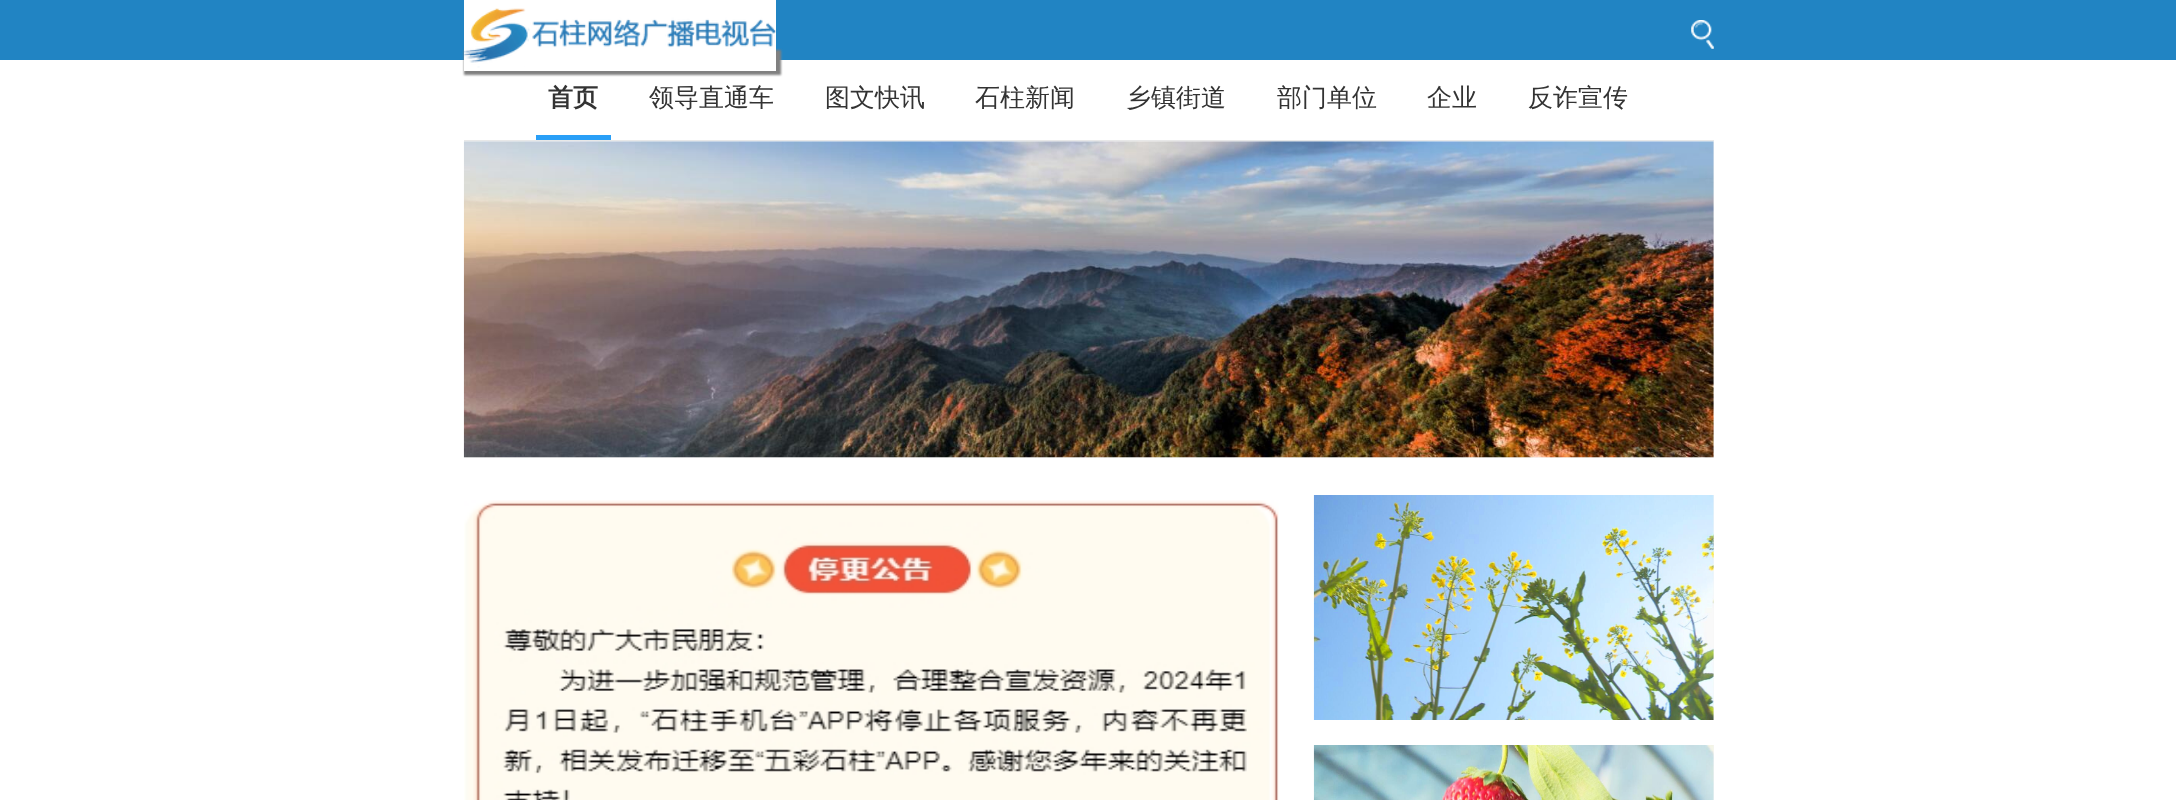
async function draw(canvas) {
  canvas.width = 2176
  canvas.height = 800
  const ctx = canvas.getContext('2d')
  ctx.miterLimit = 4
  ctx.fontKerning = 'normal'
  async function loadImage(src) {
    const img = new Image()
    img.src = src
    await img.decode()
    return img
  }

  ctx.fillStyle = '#fff'
  ctx.fillRect(0, 0, 2176, 800)
  ctx.fillStyle = '#2184c3'
  ctx.fillRect(0, 0, 2176, 60)
  ctx.save()
  ctx.beginPath()
  ctx.moveTo(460, 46)
  ctx.lineTo(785, 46)
  ctx.lineTo(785, 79)
  ctx.lineTo(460, 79)
  ctx.closePath()
  ctx.moveTo(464, 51)
  ctx.lineTo(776, 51)
  ctx.lineTo(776, 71)
  ctx.lineTo(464, 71)
  ctx.closePath()
  ctx.clip('evenodd')
  ctx.fillStyle = '#808080'
  ctx.filter = 'blur(1px)'
  ctx.beginPath()
  ctx.rect(464, 50, 317, 25)
  ctx.fill()
  ctx.filter = 'none'
  ctx.restore()
  ctx.fillStyle = '#fff'
  ctx.fillRect(464, 0, 312, 60)
  ctx.drawImage(await loadImage('image0.png'), 464, 8, 312, 60)
  ctx.drawImage(await loadImage('image1.png'), 1691, 20, 23, 29)
  ctx.fillStyle = '#e8e8e8'
  ctx.fillRect(464, 140, 1250, 1)
  ctx.fillStyle = '#299ff7'
  ctx.fillRect(536, 135, 75, 5)
  ctx.font = 'bold 25px WenQuanYi Zen Hei'
  ctx.fillStyle = '#333'
  ctx.fillText('首页', 548, 106)
  ctx.font = '500 25px WenQuanYi Zen Hei'
  ctx.fillText('领导直通车', 649, 106)
  ctx.fillText('图文快讯', 825, 106)
  ctx.fillText('石柱新闻', 975, 106)
  ctx.fillText('乡镇街道', 1126, 106)
  ctx.fillText('部门单位', 1277, 106)
  ctx.fillText('企业', 1427, 106)
  ctx.fillText('反诈宣传', 1528, 106)
  ctx.fillStyle = '#f5f5f5'
  ctx.fillRect(464, 141, 1250, 317)
  ctx.drawImage(await loadImage('image2.png'), 463, 141, 1251, 317)
  ctx.drawImage(await loadImage('image3.png'), 464, 500, 815, 300)
  ctx.fillRect(1713, 495, 1, 225)
  ctx.drawImage(await loadImage('image4.png'), 1313, 495, 401, 225)
  ctx.fillRect(1713, 745, 1, 55)
  ctx.drawImage(await loadImage('image5.png'), 1313, 745, 401, 55)
}

draw(document.querySelector('canvas'))
